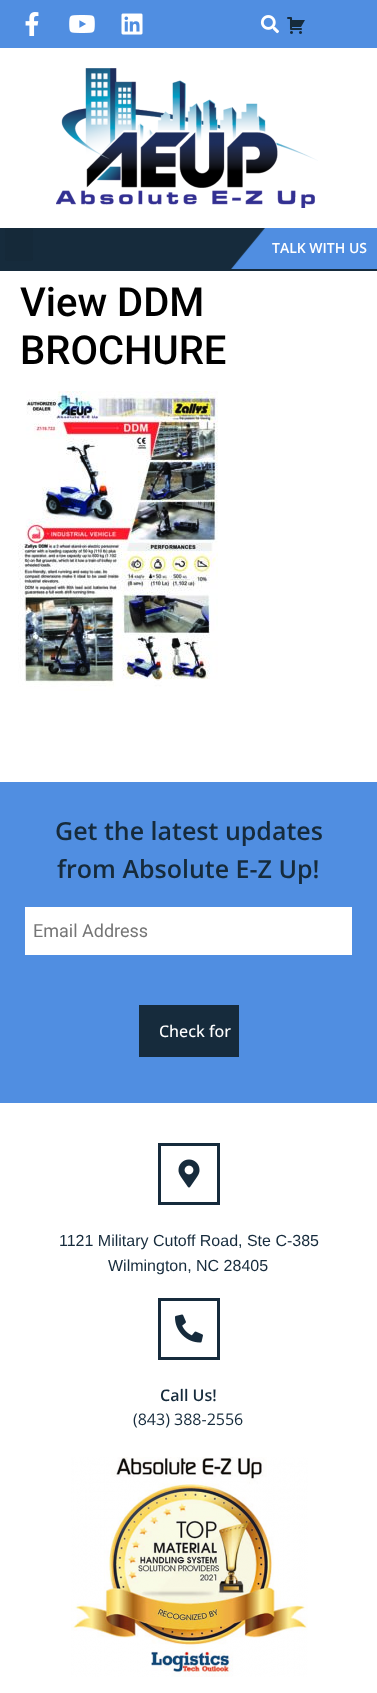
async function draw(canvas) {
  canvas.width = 377
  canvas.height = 1693
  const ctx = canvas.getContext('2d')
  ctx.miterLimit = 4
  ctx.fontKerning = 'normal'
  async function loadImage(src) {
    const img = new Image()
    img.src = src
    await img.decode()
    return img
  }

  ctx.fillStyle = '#fff'
  ctx.fillRect(0, 0, 377, 1693)
  ctx.fillStyle = '#508ee1'
  ctx.fillRect(0, 0, 377, 48)
  ctx.drawImage(await loadImage('image0.png'), 25, 12, 14, 24)
  ctx.drawImage(await loadImage('image1.png'), 69, 15, 26, 18)
  ctx.drawImage(await loadImage('image2.png'), 121, 13, 22, 22)
  ctx.drawImage(await loadImage('image3.png'), 260, 15, 19, 19)
  ctx.drawImage(await loadImage('image4.png'), 287, 17, 18, 17)
  ctx.drawImage(await loadImage('image5.png'), 56, 68, 262, 140)
  ctx.fillStyle = '#162b3c'
  ctx.fillRect(0, 228, 377, 43)
  ctx.fillStyle = '#152939'
  ctx.beginPath()
  ctx.roundRect(5, 228, 28, 33, 3)
  ctx.fill()
  ctx.drawImage(await loadImage('image6.png'), 231, 228, 146, 41)
  ctx.font = '600 14px Open Sans'
  ctx.fillStyle = '#fff'
  ctx.fillText('TALK WITH US', 272, 253)
  ctx.font = '500 40px Roboto'
  ctx.fillStyle = '#000'
  ctx.fillText('View DDM', 20, 316)
  ctx.fillText('BROCHURE', 20, 364)
  ctx.drawImage(await loadImage('image7.png'), 18, 391, 200, 300)
  ctx.fillStyle = '#508ee1'
  ctx.fillRect(0, 782, 377, 321)
  ctx.font = '600 25px Open Sans'
  ctx.fillStyle = '#162b3c'
  ctx.fillText('Get the latest updates', 55, 840)
  ctx.fillText('from Absolute E-Z Up!', 57, 878)
  ctx.fillStyle = '#fff'
  ctx.fillRect(25, 907, 327, 48)
  ctx.font = '18px Roboto'
  ctx.fillStyle = '#757575'
  ctx.fillText('Email Address', 33, 937)
  ctx.fillStyle = '#162b3c'
  ctx.fillRect(139, 1005, 100, 52)
  ctx.font = '500 16px Open Sans'
  ctx.fillStyle = '#fff'
  ctx.fillText('Check for', 159, 1037)
  ctx.strokeStyle = '#162b3c'
  ctx.lineWidth = 3
  ctx.strokeRect(159.5, 1144.5, 59, 59)
  ctx.drawImage(await loadImage('image8.png'), 178, 1159, 22, 29)
  ctx.font = '16px Liberation Sans'
  ctx.fillStyle = '#162b3c'
  ctx.fillText('1121 Military Cutoff Road, Ste C-385', 59, 1246)
  ctx.fillText('Wilmington, NC 28405', 108, 1271)
  ctx.strokeRect(159.5, 1299.5, 59, 59)
  ctx.drawImage(await loadImage('image9.png'), 175, 1314, 28, 29)
  ctx.font = '600 16px Open Sans'
  ctx.fillText('Call Us!', 160, 1401)
  ctx.font = '16px Open Sans'
  ctx.fillText('(843) 388-2556', 133, 1425)
  ctx.drawImage(await loadImage('image10.png'), 71, 1457, 237, 220)
}

draw(document.querySelector('canvas'))
